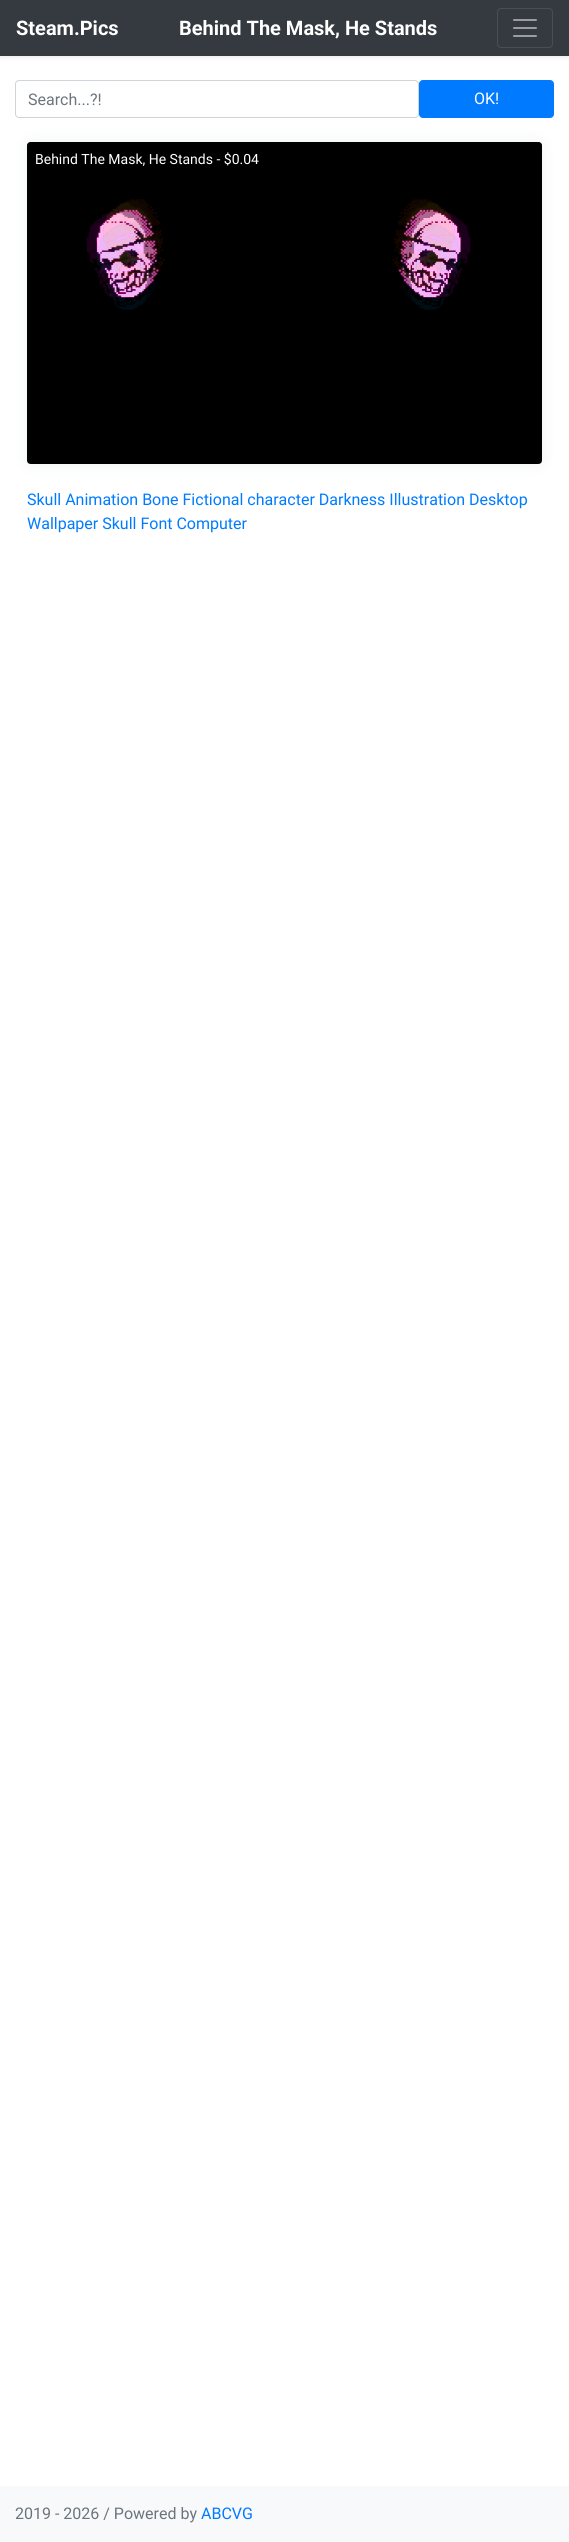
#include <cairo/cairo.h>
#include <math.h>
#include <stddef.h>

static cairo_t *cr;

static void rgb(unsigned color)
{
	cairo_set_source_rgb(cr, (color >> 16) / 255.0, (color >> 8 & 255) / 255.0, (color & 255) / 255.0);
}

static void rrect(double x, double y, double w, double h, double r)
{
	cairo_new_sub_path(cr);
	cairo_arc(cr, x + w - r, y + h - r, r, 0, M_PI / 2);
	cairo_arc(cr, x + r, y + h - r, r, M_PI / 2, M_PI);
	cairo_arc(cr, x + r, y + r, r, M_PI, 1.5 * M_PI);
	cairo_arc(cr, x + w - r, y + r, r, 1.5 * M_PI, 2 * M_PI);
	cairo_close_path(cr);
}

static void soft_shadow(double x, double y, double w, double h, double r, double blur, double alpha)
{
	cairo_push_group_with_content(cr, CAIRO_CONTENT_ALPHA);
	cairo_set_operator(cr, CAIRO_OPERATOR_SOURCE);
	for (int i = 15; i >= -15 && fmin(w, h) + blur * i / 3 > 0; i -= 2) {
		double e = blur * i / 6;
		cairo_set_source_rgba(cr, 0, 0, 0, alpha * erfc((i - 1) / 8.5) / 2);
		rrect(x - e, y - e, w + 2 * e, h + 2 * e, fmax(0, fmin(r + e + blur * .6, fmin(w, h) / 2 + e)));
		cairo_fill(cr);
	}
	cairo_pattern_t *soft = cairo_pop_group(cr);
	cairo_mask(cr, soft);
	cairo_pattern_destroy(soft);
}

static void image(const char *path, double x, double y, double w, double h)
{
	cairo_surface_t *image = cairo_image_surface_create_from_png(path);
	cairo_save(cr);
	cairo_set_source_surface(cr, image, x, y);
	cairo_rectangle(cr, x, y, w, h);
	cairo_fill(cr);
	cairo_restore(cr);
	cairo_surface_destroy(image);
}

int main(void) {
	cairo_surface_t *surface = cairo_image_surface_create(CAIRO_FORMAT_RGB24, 569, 2542);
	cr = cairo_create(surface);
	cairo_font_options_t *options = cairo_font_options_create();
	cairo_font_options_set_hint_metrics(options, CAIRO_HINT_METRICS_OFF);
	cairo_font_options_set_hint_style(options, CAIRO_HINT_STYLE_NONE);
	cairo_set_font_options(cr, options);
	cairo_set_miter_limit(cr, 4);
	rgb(0xffffff);
	cairo_paint(cr);
	rgb(0x000000);
	soft_shadow(0, 2, 569, 56, 0, 2, 0.07);
	rgb(0x343a40);
	cairo_rectangle(cr, 0, 0, 569, 56);
	cairo_fill(cr);
	rrect(497.5, 8.5, 55, 39, 3.5);
	rgb(0x484e53);
	cairo_set_line_width(cr, 1);
	cairo_stroke(cr);
	image("img/1.png", 513, 19, 24, 18);
	rrect(15.5, 80.5, 403, 37, 3.5);
	rgb(0xced4da);
	cairo_stroke(cr);
	rgb(0x007bff);
	rrect(419.5, 80.5, 134, 37, 3.5);
	cairo_fill_preserve(cr);
	cairo_stroke(cr);
	rgb(0x9aa1ab);
	soft_shadow(27, 142, 515, 322, 4, 7.5, 0.15);
	image("img/2.png", 27, 142, 515, 322);
	cairo_set_source_rgba(cr, 0, 0, 0, 0.7);
	cairo_new_path(cr);
	cairo_move_to(cr, 31, 142);
	cairo_line_to(cr, 538, 142);
	cairo_curve_to(cr, 540, 142, 542, 144, 542, 146);
	cairo_line_to(cr, 542, 177);
	cairo_line_to(cr, 27, 177);
	cairo_line_to(cr, 27, 146);
	cairo_curve_to(cr, 27, 144, 29, 142, 31, 142);
	cairo_close_path(cr);
	cairo_fill(cr);
	rgb(0xf8f9fa);
	cairo_rectangle(cr, 0, 2486, 569, 56);
	cairo_fill(cr);
	cairo_select_font_face(cr, "Roboto", CAIRO_FONT_SLANT_NORMAL, CAIRO_FONT_WEIGHT_BOLD);
	cairo_set_font_size(cr, 20);
	rgb(0xffffff);
	cairo_move_to(cr, 16, 35);
	cairo_show_text(cr, "Steam.Pics");
	cairo_move_to(cr, 179, 35);
	cairo_show_text(cr, "Behind The Mask, He Stands");
	cairo_select_font_face(cr, "Roboto", CAIRO_FONT_SLANT_NORMAL, CAIRO_FONT_WEIGHT_NORMAL);
	cairo_set_font_size(cr, 16);
	rgb(0x6c757d);
	cairo_move_to(cr, 28, 105);
	cairo_show_text(cr, "Search...?!");
	rgb(0xffffff);
	cairo_move_to(cr, 474, 104);
	cairo_show_text(cr, "OK!");
	cairo_set_font_size(cr, 14);
	cairo_move_to(cr, 35, 164);
	cairo_show_text(cr, "Behind The Mask, He Stands - $0.04");
	cairo_set_font_size(cr, 16);
	rgb(0x007bff);
	cairo_move_to(cr, 27, 505);
	cairo_show_text(cr, "Skull Animation Bone Fictional character Darkness Illustration Desktop");
	cairo_move_to(cr, 27, 529);
	cairo_show_text(cr, "Wallpaper Skull Font Computer");
	rgb(0x6c757d);
	cairo_move_to(cr, 15, 2519);
	cairo_show_text(cr, "2019 - 2026 / Powered by");
	rgb(0x007bff);
	cairo_move_to(cr, 201, 2519);
	cairo_show_text(cr, "ABCVG");
	cairo_surface_write_to_png(surface, "page.png");
	cairo_font_options_destroy(options);
	cairo_destroy(cr);
	cairo_surface_destroy(surface);
	return 0;
}
